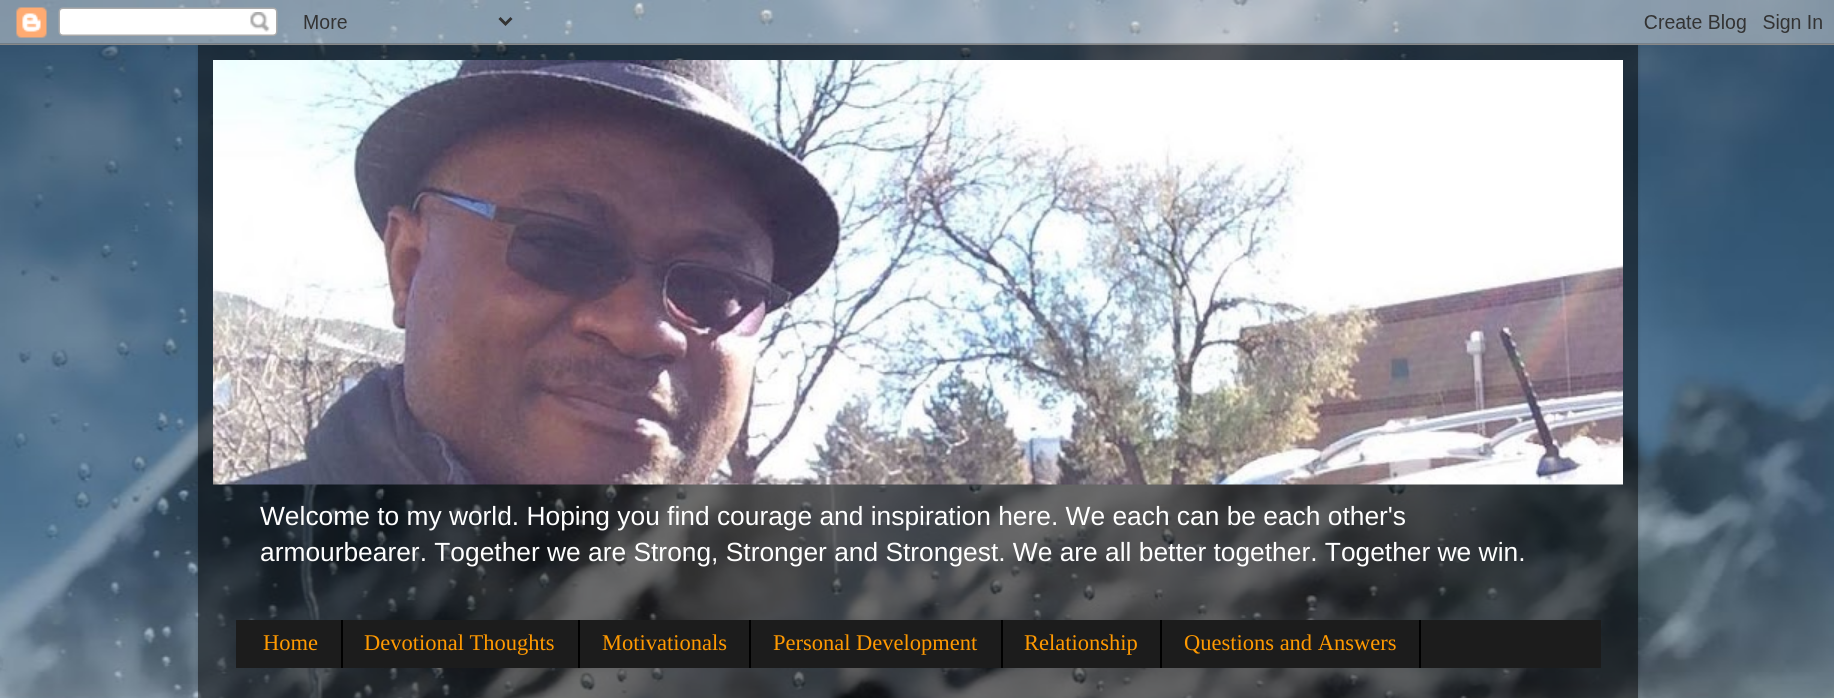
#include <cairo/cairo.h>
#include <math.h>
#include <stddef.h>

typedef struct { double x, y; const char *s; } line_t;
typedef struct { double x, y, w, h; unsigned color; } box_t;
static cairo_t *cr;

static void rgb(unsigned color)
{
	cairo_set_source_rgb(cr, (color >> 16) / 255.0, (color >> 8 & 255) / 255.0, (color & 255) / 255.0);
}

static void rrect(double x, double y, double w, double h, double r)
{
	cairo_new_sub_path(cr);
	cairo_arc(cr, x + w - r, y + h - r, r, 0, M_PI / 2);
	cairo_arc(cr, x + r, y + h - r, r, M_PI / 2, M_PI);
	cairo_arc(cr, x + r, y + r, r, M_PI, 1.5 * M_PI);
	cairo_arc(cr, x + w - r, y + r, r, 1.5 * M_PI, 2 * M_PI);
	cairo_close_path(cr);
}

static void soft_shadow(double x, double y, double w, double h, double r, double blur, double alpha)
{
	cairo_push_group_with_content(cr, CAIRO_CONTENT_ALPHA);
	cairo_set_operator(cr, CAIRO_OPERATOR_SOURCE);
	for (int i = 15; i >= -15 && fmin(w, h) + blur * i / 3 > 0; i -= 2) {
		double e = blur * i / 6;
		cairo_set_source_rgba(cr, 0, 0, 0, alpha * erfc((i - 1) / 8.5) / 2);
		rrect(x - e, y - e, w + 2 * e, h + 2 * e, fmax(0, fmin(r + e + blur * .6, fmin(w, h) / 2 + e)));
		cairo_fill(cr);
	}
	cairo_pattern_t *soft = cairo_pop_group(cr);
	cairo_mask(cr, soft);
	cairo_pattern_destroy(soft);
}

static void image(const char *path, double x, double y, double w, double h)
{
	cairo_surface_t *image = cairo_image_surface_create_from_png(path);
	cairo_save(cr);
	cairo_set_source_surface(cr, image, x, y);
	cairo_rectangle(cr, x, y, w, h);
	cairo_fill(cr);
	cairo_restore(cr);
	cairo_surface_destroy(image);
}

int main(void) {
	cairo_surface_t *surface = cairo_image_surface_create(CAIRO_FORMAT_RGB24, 1834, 698);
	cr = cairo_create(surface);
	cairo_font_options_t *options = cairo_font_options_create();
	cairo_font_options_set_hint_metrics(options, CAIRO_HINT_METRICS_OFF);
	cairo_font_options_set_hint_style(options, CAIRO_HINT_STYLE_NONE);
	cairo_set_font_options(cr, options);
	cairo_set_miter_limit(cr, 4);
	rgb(0xffffff);
	cairo_paint(cr);
	image("img/1.png", 0, 0, 1834, 698);
	cairo_save(cr);
	cairo_set_fill_rule(cr, CAIRO_FILL_RULE_EVEN_ODD);
	cairo_new_path(cr);
	cairo_move_to(cr, 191, 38);
	cairo_line_to(cr, 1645, 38);
	cairo_line_to(cr, 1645, 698);
	cairo_line_to(cr, 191, 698);
	cairo_close_path(cr);
	cairo_move_to(cr, 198, 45);
	cairo_line_to(cr, 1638, 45);
	cairo_line_to(cr, 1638, 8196);
	cairo_line_to(cr, 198, 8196);
	cairo_close_path(cr);
	cairo_clip(cr);
	rgb(0x000000);
	soft_shadow(198, 45, 1440, 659, 0, 2, 0.15);
	cairo_restore(cr);
	image("img/2.png", 0, 0, 1834, 45);
	cairo_set_source_rgba(cr, 0, 0, 0, 0.5);
	cairo_rectangle(cr, 198, 45, 1440, 653);
	cairo_fill(cr);
	image("img/3.png", 213, 60, 1410, 425);
	{
		static const box_t items[] = {
			{236, 620, 1365, 48, 0x1c1c1c},
			{341, 620, 2, 48, 0x000000},
			{578, 620, 2, 48, 0x000000},
			{749, 620, 2, 48, 0x000000},
			{1001, 620, 2, 48, 0x000000},
			{1160, 620, 2, 48, 0x000000},
			{1419, 620, 2, 48, 0x000000},
		};
		for (size_t i = 0; i < sizeof items / sizeof *items; i++) {
			rgb(items[i].color);
			cairo_rectangle(cr, items[i].x, items[i].y, items[i].w, items[i].h);
			cairo_fill(cr);
		}
	}
	cairo_select_font_face(cr, "Liberation Sans", CAIRO_FONT_SLANT_NORMAL, CAIRO_FONT_WEIGHT_NORMAL);
	cairo_set_font_size(cr, 26.35);
	rgb(0xffffff);
	cairo_move_to(cr, 260, 525);
	cairo_show_text(cr, "Welcome to my world. Hoping you find courage and inspiration here. We each can be each other's");
	cairo_move_to(cr, 260, 561);
	cairo_show_text(cr, "armourbearer. Together we are Strong, Stronger and Strongest. We are all better together. Together we win.");
	cairo_select_font_face(cr, "Liberation Serif", CAIRO_FONT_SLANT_NORMAL, CAIRO_FONT_WEIGHT_NORMAL);
	cairo_set_font_size(cr, 22.5);
	rgb(0xff9900);
	{
		static const line_t items[] = {
			{263, 650, "Home"},
			{364, 650, "Devotional Thoughts"},
			{602, 650, "Motivationals"},
			{773, 650, "Personal Development"},
			{1024, 650, "Relationship"},
			{1184, 650, "Questions and Answers"},
		};
		for (size_t i = 0; i < sizeof items / sizeof *items; i++) {
			cairo_move_to(cr, items[i].x, items[i].y);
			cairo_show_text(cr, items[i].s);
		}
	}
	cairo_surface_write_to_png(surface, "page.png");
	cairo_font_options_destroy(options);
	cairo_destroy(cr);
	cairo_surface_destroy(surface);
	return 0;
}
